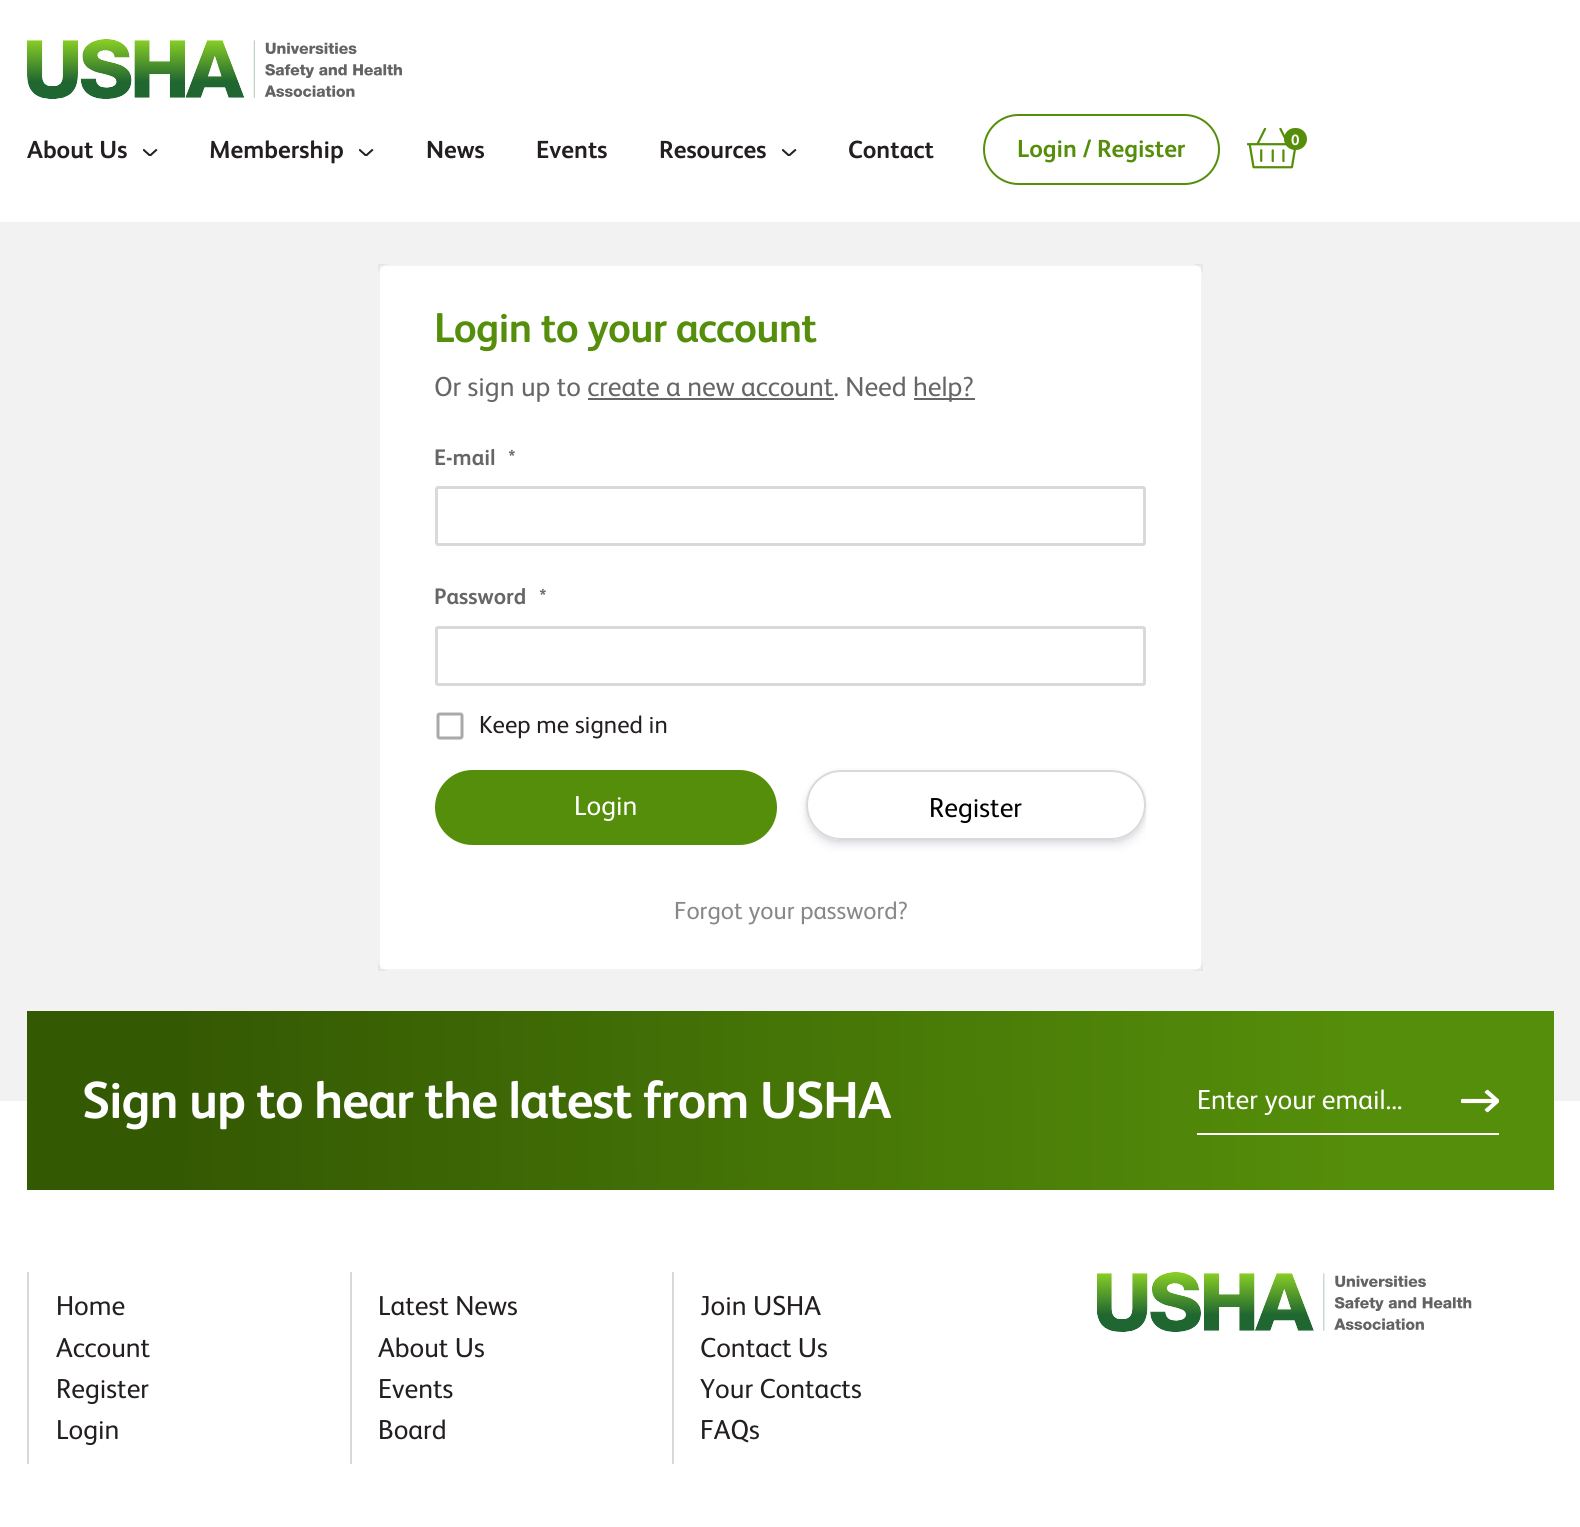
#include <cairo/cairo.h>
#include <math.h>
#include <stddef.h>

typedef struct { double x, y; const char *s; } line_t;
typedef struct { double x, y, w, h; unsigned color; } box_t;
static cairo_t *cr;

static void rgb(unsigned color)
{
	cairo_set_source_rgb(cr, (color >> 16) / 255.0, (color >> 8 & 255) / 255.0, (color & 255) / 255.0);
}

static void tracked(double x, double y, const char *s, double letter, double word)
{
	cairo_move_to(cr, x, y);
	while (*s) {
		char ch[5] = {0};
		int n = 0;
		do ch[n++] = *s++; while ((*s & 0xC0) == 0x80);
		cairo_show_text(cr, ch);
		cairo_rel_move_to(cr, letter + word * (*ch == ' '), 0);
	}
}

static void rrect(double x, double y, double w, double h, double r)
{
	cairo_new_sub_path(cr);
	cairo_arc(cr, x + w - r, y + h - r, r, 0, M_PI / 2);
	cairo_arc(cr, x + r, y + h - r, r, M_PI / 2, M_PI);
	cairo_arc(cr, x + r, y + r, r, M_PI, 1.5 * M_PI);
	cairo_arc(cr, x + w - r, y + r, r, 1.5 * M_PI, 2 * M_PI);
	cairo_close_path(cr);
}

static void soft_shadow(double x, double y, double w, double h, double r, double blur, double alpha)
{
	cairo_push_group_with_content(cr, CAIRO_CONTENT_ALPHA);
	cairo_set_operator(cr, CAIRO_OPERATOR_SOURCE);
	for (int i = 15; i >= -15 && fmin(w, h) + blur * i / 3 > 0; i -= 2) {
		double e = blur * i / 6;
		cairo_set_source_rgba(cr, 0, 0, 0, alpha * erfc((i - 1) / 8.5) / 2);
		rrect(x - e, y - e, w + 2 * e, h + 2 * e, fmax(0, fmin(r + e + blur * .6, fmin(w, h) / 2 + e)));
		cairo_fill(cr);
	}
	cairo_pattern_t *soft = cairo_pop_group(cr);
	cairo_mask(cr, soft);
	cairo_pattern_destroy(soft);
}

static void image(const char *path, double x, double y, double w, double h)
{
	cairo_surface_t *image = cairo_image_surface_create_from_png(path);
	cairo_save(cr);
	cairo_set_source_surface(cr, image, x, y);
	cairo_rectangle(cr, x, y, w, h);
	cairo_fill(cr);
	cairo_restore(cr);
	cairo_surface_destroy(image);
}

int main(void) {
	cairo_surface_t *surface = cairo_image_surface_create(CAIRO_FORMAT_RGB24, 1580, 1527);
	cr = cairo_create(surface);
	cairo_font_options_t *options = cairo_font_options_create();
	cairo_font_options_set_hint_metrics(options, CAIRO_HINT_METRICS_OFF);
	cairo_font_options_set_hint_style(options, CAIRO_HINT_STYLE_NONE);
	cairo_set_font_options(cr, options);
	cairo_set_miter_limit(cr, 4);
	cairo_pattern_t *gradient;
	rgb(0xffffff);
	cairo_paint(cr);
	image("img/1.png", 27, 39, 375, 60);
	image("img/2.png", 143, 149, 15, 7);
	image("img/2.png", 359, 149, 15, 7);
	image("img/2.png", 782, 149, 15, 7);
	rrect(984, 115, 235, 69, 34.5);
	rgb(0x558e0a);
	cairo_stroke(cr);
	image("img/3.png", 1247, 128, 50, 41);
	rrect(1284, 128, 23, 22, 11);
	cairo_fill(cr);
	rgb(0xf2f2f2);
	cairo_rectangle(cr, 0, 222, 1580, 879);
	cairo_fill(cr);
	rgb(0xffffff);
	rrect(378, 264, 825, 707, 12);
	cairo_fill(cr);
	cairo_rectangle(cr, 379, 265, 823, 705);
	cairo_set_source_rgba(cr, 0, 0, 0, 0.05);
	cairo_stroke(cr);
	rgb(0x666666);
	cairo_rectangle(cr, 914, 398, 61, 2);
	cairo_fill(cr);
	cairo_rectangle(cr, 588, 398, 246, 2);
	cairo_fill(cr);
	rrect(436.5, 487.5, 708, 57, 1.5);
	rgb(0xd9d9d9);
	cairo_set_line_width(cr, 3);
	cairo_stroke(cr);
	rrect(436.5, 627.5, 708, 57, 1.5);
	cairo_stroke(cr);
	image("img/4.png", 436, 712, 28, 28);
	rgb(0x558e0a);
	rrect(435, 770, 342, 75, 37.5);
	cairo_fill(cr);
	cairo_save(cr);
	cairo_set_fill_rule(cr, CAIRO_FILL_RULE_EVEN_ODD);
	cairo_new_path(cr);
	cairo_move_to(cr, 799, 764);
	cairo_line_to(cr, 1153, 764);
	cairo_line_to(cr, 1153, 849);
	cairo_line_to(cr, 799, 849);
	cairo_close_path(cr);
	cairo_move_to(cr, 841, 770);
	cairo_line_to(cr, 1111, 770);
	cairo_curve_to(cr, 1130.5, 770, 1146, 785.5, 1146, 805);
	cairo_curve_to(cr, 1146, 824.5, 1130.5, 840, 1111, 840);
	cairo_line_to(cr, 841, 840);
	cairo_curve_to(cr, 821.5, 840, 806, 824.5, 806, 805);
	cairo_curve_to(cr, 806, 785.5, 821.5, 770, 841, 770);
	cairo_close_path(cr);
	cairo_clip(cr);
	rgb(0x000000);
	soft_shadow(806, 771, 340, 71, 35.5, 2, 0.08);
	cairo_restore(cr);
	cairo_save(cr);
	cairo_rectangle(cr, 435, 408, 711, 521);
	cairo_clip(cr);
	cairo_set_fill_rule(cr, CAIRO_FILL_RULE_EVEN_ODD);
	cairo_new_path(cr);
	cairo_move_to(cr, 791, 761);
	cairo_line_to(cr, 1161, 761);
	cairo_line_to(cr, 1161, 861);
	cairo_line_to(cr, 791, 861);
	cairo_close_path(cr);
	cairo_move_to(cr, 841, 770);
	cairo_line_to(cr, 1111, 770);
	cairo_curve_to(cr, 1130.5, 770, 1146, 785.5, 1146, 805);
	cairo_curve_to(cr, 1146, 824.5, 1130.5, 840, 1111, 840);
	cairo_line_to(cr, 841, 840);
	cairo_curve_to(cr, 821.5, 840, 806, 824.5, 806, 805);
	cairo_curve_to(cr, 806, 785.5, 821.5, 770, 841, 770);
	cairo_close_path(cr);
	cairo_clip(cr);
	rgb(0x32325d);
	soft_shadow(806, 776, 340, 70, 35, 4.5, 0.11);
	cairo_restore(cr);
	rrect(807, 771, 338, 68, 34);
	rgb(0xd9d9d9);
	cairo_set_line_width(cr, 2);
	cairo_stroke(cr);
	gradient = cairo_pattern_create_linear(1555, 1095, 26, 1106);
	cairo_pattern_add_color_stop_rgba(gradient, 0.13, 0.333, 0.557, 0.039, 1);
	cairo_pattern_add_color_stop_rgba(gradient, 0.9, 0.204, 0.349, 0.012, 1);
	cairo_set_source(cr, gradient);
	cairo_pattern_destroy(gradient);
	cairo_rectangle(cr, 27, 1011, 1527, 179);
	cairo_fill(cr);
	rgb(0xffffff);
	cairo_rectangle(cr, 1197, 1133, 302, 2);
	cairo_fill(cr);
	image("img/5.png", 1461, 1089, 38, 24);
	{
		static const box_t items[] = {
			{27, 1272, 2, 192, 0xd9d9d9},
			{350, 1272, 2, 192, 0xd9d9d9},
			{672, 1272, 2, 192, 0xd9d9d9},
		};
		for (size_t i = 0; i < sizeof items / sizeof *items; i++) {
			rgb(items[i].color);
			cairo_rectangle(cr, items[i].x, items[i].y, items[i].w, items[i].h);
			cairo_fill(cr);
		}
	}
	image("img/6.png", 1097, 1272, 375, 60);
	cairo_select_font_face(cr, "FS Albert", CAIRO_FONT_SLANT_NORMAL, CAIRO_FONT_WEIGHT_BOLD);
	cairo_set_font_size(cr, 24.75);
	rgb(0x231f20);
	{
		static const line_t items[] = {
			{27, 158, "About Us"},
			{209, 158, "Membership"},
			{426, 158, "News"},
			{536, 158, "Events"},
			{659, 158, "Resources"},
			{848, 158, "Contact"},
		};
		for (size_t i = 0; i < sizeof items / sizeof *items; i++) {
			cairo_move_to(cr, items[i].x, items[i].y);
			cairo_show_text(cr, items[i].s);
		}
	}
	rgb(0x558e0a);
	cairo_move_to(cr, 1017, 157);
	cairo_show_text(cr, "Login / Register");
	cairo_set_font_size(cr, 15);
	rgb(0xffffff);
	cairo_move_to(cr, 1291, 145);
	cairo_show_text(cr, "0");
	cairo_set_font_size(cr, 41.75);
	rgb(0x558e0a);
	tracked(434, 342, "Login to your account", -0.75, 0);
	cairo_select_font_face(cr, "FS Albert", CAIRO_FONT_SLANT_NORMAL, CAIRO_FONT_WEIGHT_NORMAL);
	cairo_set_font_size(cr, 27.5);
	rgb(0x666666);
	cairo_move_to(cr, 434, 396);
	cairo_show_text(cr, "Or sign up to create a new account. Need");
	cairo_move_to(cr, 913, 396);
	cairo_show_text(cr, "help?");
	cairo_select_font_face(cr, "FS Albert", CAIRO_FONT_SLANT_NORMAL, CAIRO_FONT_WEIGHT_BOLD);
	cairo_set_font_size(cr, 22.5);
	cairo_move_to(cr, 434, 465);
	cairo_show_text(cr, "E-mail");
	cairo_set_font_size(cr, 21);
	cairo_move_to(cr, 508, 465);
	cairo_show_text(cr, "*");
	cairo_set_font_size(cr, 22.5);
	cairo_move_to(cr, 434, 604);
	cairo_show_text(cr, "Password");
	cairo_set_font_size(cr, 21);
	cairo_move_to(cr, 539, 604);
	cairo_show_text(cr, "*");
	cairo_select_font_face(cr, "FS Albert", CAIRO_FONT_SLANT_NORMAL, CAIRO_FONT_WEIGHT_NORMAL);
	cairo_set_font_size(cr, 24.75);
	rgb(0x231f20);
	cairo_move_to(cr, 479, 733);
	cairo_show_text(cr, "Keep me signed in");
	cairo_set_font_size(cr, 27.5);
	rgb(0xffffff);
	cairo_move_to(cr, 574, 815);
	cairo_show_text(cr, "Login");
	rgb(0x000000);
	cairo_move_to(cr, 929, 817);
	cairo_show_text(cr, "Register");
	cairo_set_font_size(cr, 24.75);
	rgb(0x888888);
	cairo_move_to(cr, 674, 919);
	cairo_show_text(cr, "Forgot your password?");
	cairo_select_font_face(cr, "FS Albert", CAIRO_FONT_SLANT_NORMAL, CAIRO_FONT_WEIGHT_BOLD);
	cairo_set_font_size(cr, 52.1);
	rgb(0xffffff);
	tracked(82, 1118, "Sign up to hear the latest from USHA", -1.1, 0);
	cairo_select_font_face(cr, "FS Albert", CAIRO_FONT_SLANT_NORMAL, CAIRO_FONT_WEIGHT_NORMAL);
	cairo_set_font_size(cr, 27.5);
	cairo_move_to(cr, 1197, 1109);
	cairo_show_text(cr, "Enter your email...");
	rgb(0x231f20);
	{
		static const line_t items[] = {
			{56, 1315, "Home"},
			{56, 1357, "Account"},
			{56, 1398, "Register"},
			{56, 1439, "Login"},
			{378, 1315, "Latest News"},
			{378, 1357, "About Us"},
			{378, 1398, "Events"},
			{378, 1439, "Board"},
			{700, 1315, "Join USHA"},
			{700, 1357, "Contact Us"},
			{700, 1398, "Your Contacts"},
			{700, 1439, "FAQs"},
		};
		for (size_t i = 0; i < sizeof items / sizeof *items; i++) {
			cairo_move_to(cr, items[i].x, items[i].y);
			cairo_show_text(cr, items[i].s);
		}
	}
	cairo_surface_write_to_png(surface, "page.png");
	cairo_font_options_destroy(options);
	cairo_destroy(cr);
	cairo_surface_destroy(surface);
	return 0;
}
